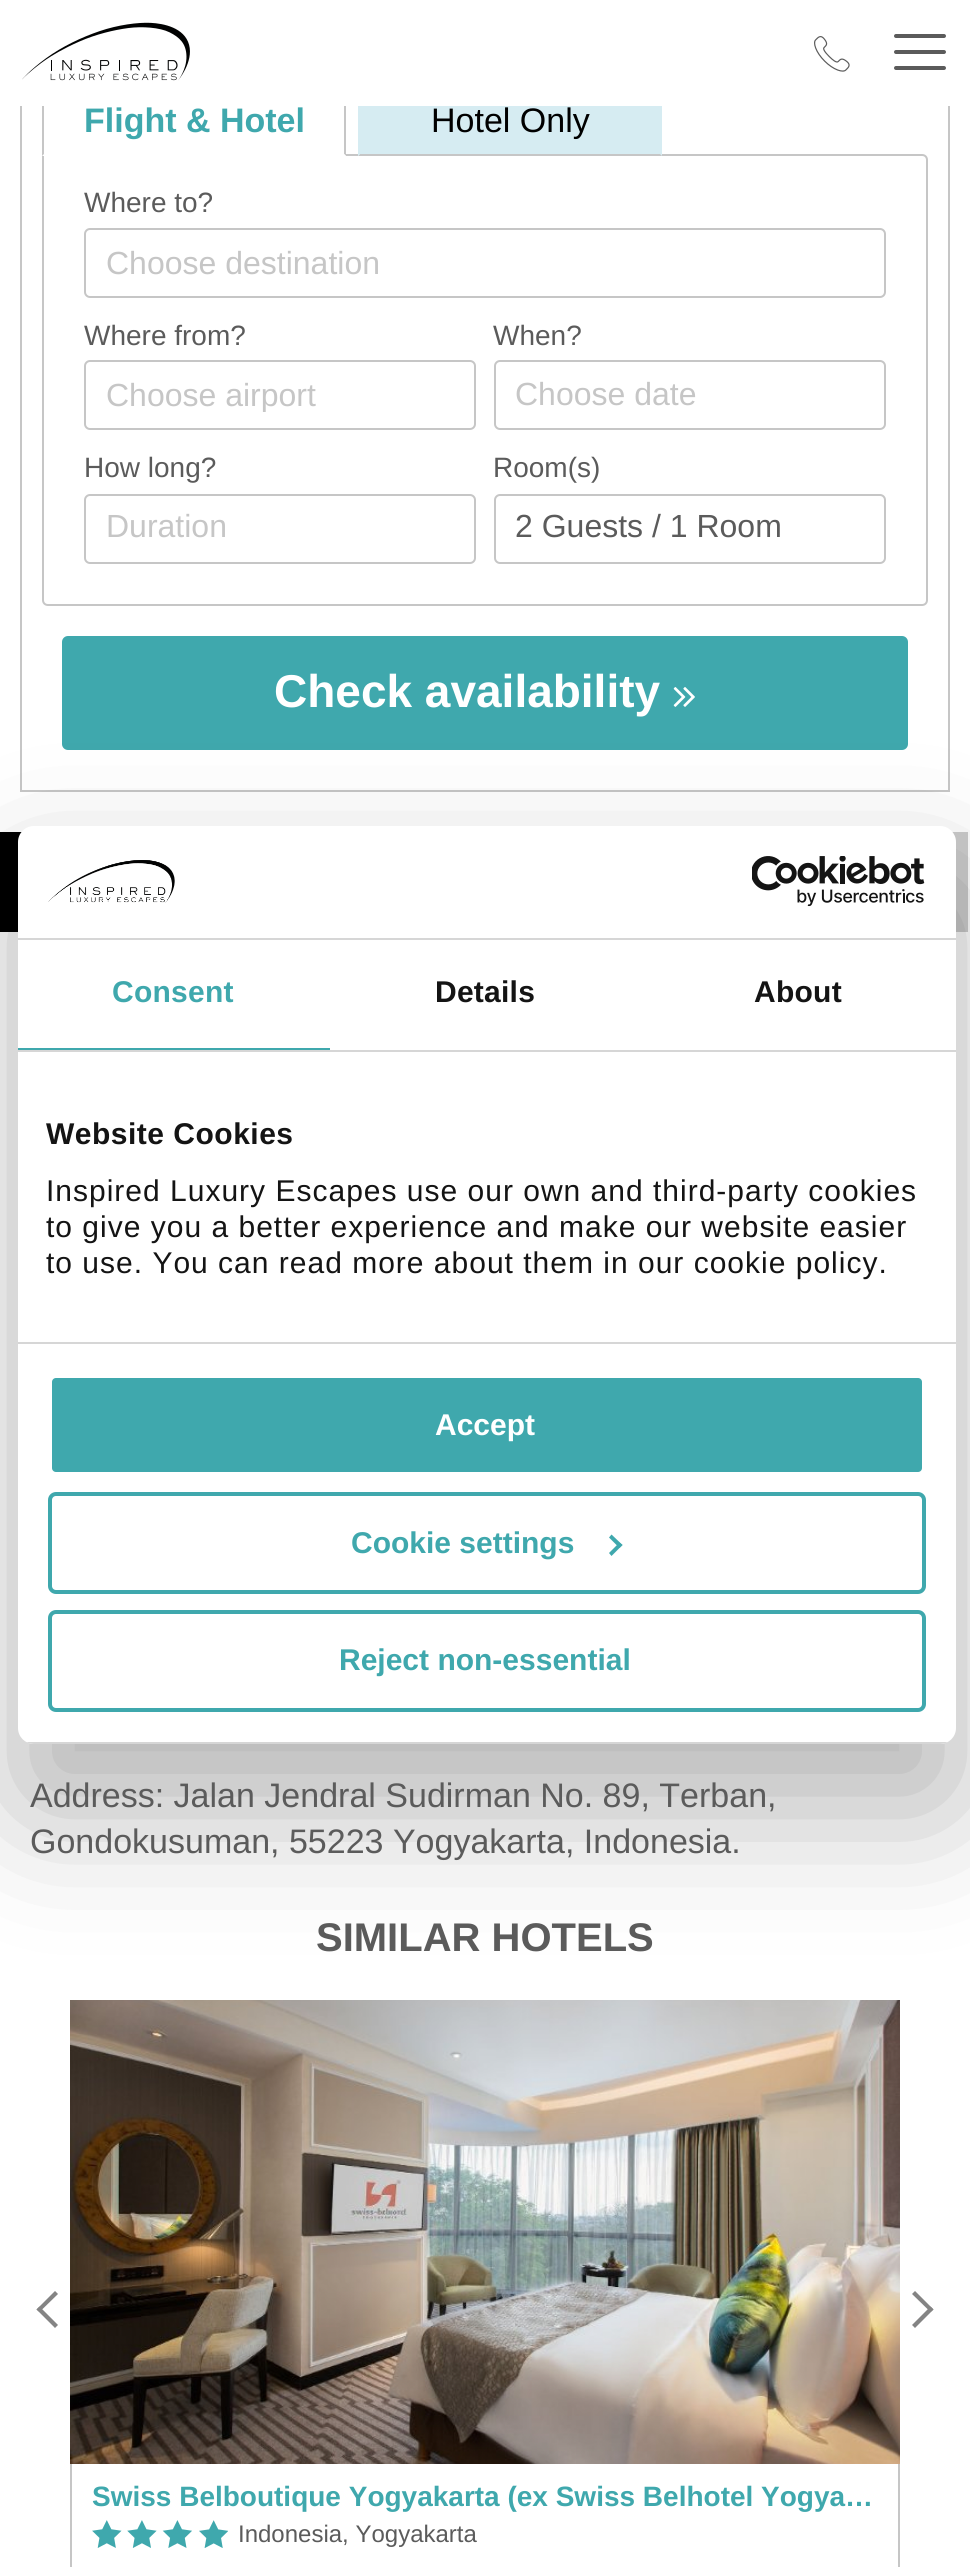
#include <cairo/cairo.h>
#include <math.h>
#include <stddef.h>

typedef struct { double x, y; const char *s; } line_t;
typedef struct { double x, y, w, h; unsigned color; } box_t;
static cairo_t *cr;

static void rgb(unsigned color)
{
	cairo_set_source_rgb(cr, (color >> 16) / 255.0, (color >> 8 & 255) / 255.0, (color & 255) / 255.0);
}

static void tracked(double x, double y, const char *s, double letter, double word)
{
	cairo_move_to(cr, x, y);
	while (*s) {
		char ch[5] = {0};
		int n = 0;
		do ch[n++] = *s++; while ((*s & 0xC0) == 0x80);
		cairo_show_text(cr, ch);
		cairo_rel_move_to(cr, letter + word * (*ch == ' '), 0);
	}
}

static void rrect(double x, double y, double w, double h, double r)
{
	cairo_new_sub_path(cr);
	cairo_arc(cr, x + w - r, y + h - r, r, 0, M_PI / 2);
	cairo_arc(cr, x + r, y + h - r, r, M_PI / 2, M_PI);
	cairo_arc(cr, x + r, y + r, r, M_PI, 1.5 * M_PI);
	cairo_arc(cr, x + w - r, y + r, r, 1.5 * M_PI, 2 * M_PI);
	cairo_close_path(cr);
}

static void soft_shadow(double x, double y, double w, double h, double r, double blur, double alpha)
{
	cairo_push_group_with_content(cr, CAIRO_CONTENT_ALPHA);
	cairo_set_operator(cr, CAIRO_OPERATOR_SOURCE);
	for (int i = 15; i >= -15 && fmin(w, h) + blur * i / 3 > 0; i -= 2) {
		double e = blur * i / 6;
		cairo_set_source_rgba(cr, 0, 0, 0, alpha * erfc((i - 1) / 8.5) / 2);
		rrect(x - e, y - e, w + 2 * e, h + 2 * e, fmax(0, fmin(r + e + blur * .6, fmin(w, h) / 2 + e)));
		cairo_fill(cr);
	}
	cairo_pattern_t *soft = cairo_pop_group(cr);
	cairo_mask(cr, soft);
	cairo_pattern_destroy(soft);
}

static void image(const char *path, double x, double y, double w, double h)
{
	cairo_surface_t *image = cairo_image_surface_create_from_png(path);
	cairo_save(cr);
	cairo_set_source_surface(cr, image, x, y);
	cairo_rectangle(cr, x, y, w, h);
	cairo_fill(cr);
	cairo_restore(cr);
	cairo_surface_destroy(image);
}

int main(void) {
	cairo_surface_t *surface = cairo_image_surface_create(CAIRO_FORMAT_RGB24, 970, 2567);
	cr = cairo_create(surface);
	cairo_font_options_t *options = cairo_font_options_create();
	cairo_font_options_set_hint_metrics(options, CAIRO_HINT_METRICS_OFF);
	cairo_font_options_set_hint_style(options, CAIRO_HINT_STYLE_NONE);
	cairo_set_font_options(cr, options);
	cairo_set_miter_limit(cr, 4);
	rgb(0xffffff);
	cairo_paint(cr);
	cairo_rectangle(cr, 21, -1, 928, 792);
	rgb(0xc6c6c6);
	cairo_stroke(cr);
	cairo_new_path(cr);
	cairo_move_to(cr, 43, 155);
	cairo_line_to(cr, 922, 155);
	cairo_curve_to(cr, 925, 155, 927, 157, 927, 160);
	cairo_line_to(cr, 927, 600);
	cairo_curve_to(cr, 927, 603, 925, 605, 922, 605);
	cairo_line_to(cr, 48, 605);
	cairo_curve_to(cr, 45, 605, 43, 603, 43, 600);
	cairo_close_path(cr);
	cairo_stroke(cr);
	rgb(0xffffff);
	cairo_rectangle(cr, 42, 154, 304, 2);
	cairo_fill(cr);
	rgb(0xc6c6c6);
	cairo_new_path(cr);
	cairo_move_to(cr, 346, 156);
	cairo_line_to(cr, 346, 97);
	cairo_curve_to(cr, 346, 94, 345, 91, 343, 89);
	cairo_line_to(cr, 341, 91);
	cairo_curve_to(cr, 343, 92, 344, 94, 344, 97);
	cairo_line_to(cr, 344, 154);
	cairo_close_path(cr);
	cairo_fill(cr);
	rgb(0xffffff);
	cairo_new_path(cr);
	cairo_move_to(cr, 346, 156);
	cairo_line_to(cr, 344, 154);
	cairo_line_to(cr, 44, 154);
	cairo_line_to(cr, 42, 156);
	cairo_close_path(cr);
	cairo_fill(cr);
	rgb(0xc6c6c6);
	cairo_new_path(cr);
	cairo_move_to(cr, 42, 156);
	cairo_line_to(cr, 44, 154);
	cairo_line_to(cr, 44, 97);
	cairo_curve_to(cr, 44, 94, 45, 92, 47, 91);
	cairo_line_to(cr, 45, 89);
	cairo_curve_to(cr, 43, 91, 42, 94, 42, 97);
	cairo_close_path(cr);
	cairo_fill(cr);
	rgb(0xd6ecf2);
	cairo_rectangle(cr, 358, 106, 304, 50);
	cairo_fill(cr);
	cairo_new_path(cr);
	cairo_move_to(cr, 662, 156);
	cairo_line_to(cr, 662, 97);
	cairo_curve_to(cr, 662, 94, 661, 91, 659, 89);
	cairo_line_to(cr, 657, 91);
	cairo_curve_to(cr, 659, 92, 660, 94, 660, 97);
	cairo_line_to(cr, 660, 154);
	cairo_close_path(cr);
	cairo_fill(cr);
	rgb(0xc6c6c6);
	cairo_new_path(cr);
	cairo_move_to(cr, 662, 156);
	cairo_line_to(cr, 660, 154);
	cairo_line_to(cr, 360, 154);
	cairo_line_to(cr, 358, 156);
	cairo_close_path(cr);
	cairo_fill(cr);
	rgb(0xd6ecf2);
	cairo_new_path(cr);
	cairo_move_to(cr, 358, 156);
	cairo_line_to(cr, 360, 154);
	cairo_line_to(cr, 360, 97);
	cairo_curve_to(cr, 360, 94, 361, 92, 363, 91);
	cairo_line_to(cr, 361, 89);
	cairo_curve_to(cr, 359, 91, 358, 94, 358, 97);
	cairo_close_path(cr);
	cairo_fill(cr);
	rgb(0xffffff);
	cairo_rectangle(cr, 20, 0, 930, 106);
	cairo_fill(cr);
	image("img/1.png", 22, 22, 168, 59);
	image("img/2.png", 814, 36, 36, 36);
	rgb(0x5b5b5b);
	rrect(894, 50, 52, 4, 2);
	cairo_fill(cr);
	rrect(894, 34, 52, 4, 2);
	cairo_fill(cr);
	rrect(894, 66, 52, 4, 2);
	cairo_fill(cr);
	rrect(85, 229, 800, 68, 5);
	rgb(0xc6c6c6);
	cairo_stroke(cr);
	rrect(85, 361, 390, 68, 5);
	cairo_stroke(cr);
	rrect(495, 361, 390, 68, 5);
	cairo_stroke(cr);
	rrect(85, 495, 390, 68, 5);
	cairo_stroke(cr);
	rrect(495, 495, 390, 68, 5);
	cairo_stroke(cr);
	rgb(0x3fa8ad);
	rrect(62, 636, 846, 114, 6);
	cairo_fill(cr);
	image("img/3.png", 673, 687, 22, 20);
	rgb(0x000000);
	cairo_rectangle(cr, 0, 832, 22, 100);
	cairo_fill(cr);
	rgb(0xcccccc);
	cairo_rectangle(cr, 952, 832, 16, 100);
	cairo_fill(cr);
	rgb(0x848484);
	cairo_new_path(cr);
	cairo_move_to(cr, 55, 2328);
	cairo_line_to(cr, 36.5, 2309.5);
	cairo_line_to(cr, 39.5, 2306.5);
	cairo_line_to(cr, 58, 2325);
	cairo_close_path(cr);
	cairo_fill(cr);
	cairo_new_path(cr);
	cairo_move_to(cr, 39.5, 2312);
	cairo_line_to(cr, 36.5, 2309.5);
	cairo_line_to(cr, 55, 2291);
	cairo_line_to(cr, 58, 2294);
	cairo_close_path(cr);
	cairo_fill(cr);
	cairo_new_path(cr);
	cairo_move_to(cr, 915, 2291);
	cairo_line_to(cr, 933.5, 2309.5);
	cairo_line_to(cr, 930.5, 2312);
	cairo_line_to(cr, 912, 2294);
	cairo_close_path(cr);
	cairo_fill(cr);
	cairo_new_path(cr);
	cairo_move_to(cr, 930.5, 2306.5);
	cairo_line_to(cr, 933.5, 2309.5);
	cairo_line_to(cr, 915, 2328);
	cairo_line_to(cr, 912, 2325);
	cairo_close_path(cr);
	cairo_fill(cr);
	image("img/4.png", 70, 2000, 830, 464);
	rgb(0xc6c6c6);
	cairo_rectangle(cr, 898, 2464, 2, 103);
	cairo_fill(cr);
	cairo_rectangle(cr, 70, 2464, 2, 103);
	cairo_fill(cr);
	image("img/5.png", 92, 2520, 136, 28);
	rgb(0x000000);
	soft_shadow(18, 890, 938, 918, 16, 68, 0.3);
	rgb(0xffffff);
	rrect(18, 826, 938, 918, 16);
	cairo_fill(cr);
	rgb(0xd6d6d6);
	cairo_rectangle(cr, 18, 938, 938, 2);
	cairo_fill(cr);
	image("img/6.png", 48, 860, 127, 43);
	image("img/7.png", 752, 856, 173, 51);
	{
		static const box_t items[] = {
			{18, 1050, 938, 2, 0xd6d6d6},
			{18, 1048, 312, 2, 0x3fa8ad},
			{18, 1342, 938, 2, 0xd6d6d6},
		};
		for (size_t i = 0; i < sizeof items / sizeof *items; i++) {
			rgb(items[i].color);
			cairo_rectangle(cr, items[i].x, items[i].y, items[i].w, items[i].h);
			cairo_fill(cr);
		}
	}
	cairo_save(cr);
	rrect(18, 826, 938, 918, 16);
	cairo_clip(cr);
	cairo_rectangle(cr, 18, 1742, 938, 2);
	cairo_fill(cr);
	cairo_restore(cr);
	rgb(0x3fa8ad);
	rrect(50, 1376, 874, 98, 6);
	cairo_fill_preserve(cr);
	rgb(0xffffff);
	cairo_set_line_width(cr, 4);
	cairo_stroke(cr);
	rrect(50, 1494, 874, 98, 6);
	rgb(0x3fa8ad);
	cairo_stroke(cr);
	cairo_new_path(cr);
	cairo_move_to(cr, 611.5, 1534.5);
	cairo_line_to(cr, 622.5, 1545);
	cairo_line_to(cr, 619.5, 1548);
	cairo_line_to(cr, 609, 1537.5);
	cairo_close_path(cr);
	cairo_fill(cr);
	cairo_new_path(cr);
	cairo_move_to(cr, 619.5, 1542.5);
	cairo_line_to(cr, 622.5, 1545);
	cairo_line_to(cr, 611.5, 1556);
	cairo_line_to(cr, 609, 1553);
	cairo_close_path(cr);
	cairo_fill(cr);
	rrect(50, 1612, 874, 98, 6);
	cairo_stroke(cr);
	cairo_select_font_face(cr, "Liberation Sans", CAIRO_FONT_SLANT_NORMAL, CAIRO_FONT_WEIGHT_BOLD);
	cairo_set_font_size(cr, 34);
	cairo_move_to(cr, 84, 132);
	cairo_show_text(cr, "Flight & Hotel");
	cairo_select_font_face(cr, "Liberation Sans", CAIRO_FONT_SLANT_NORMAL, CAIRO_FONT_WEIGHT_NORMAL);
	rgb(0x000000);
	cairo_move_to(cr, 431, 132);
	cairo_show_text(cr, "Hotel Only");
	cairo_set_font_size(cr, 28);
	rgb(0x5b5b5b);
	cairo_move_to(cr, 84, 212);
	cairo_show_text(cr, "Where to?");
	cairo_set_font_size(cr, 32);
	rgb(0xc6c6c6);
	cairo_move_to(cr, 106, 274);
	cairo_show_text(cr, "Choose destination");
	cairo_set_font_size(cr, 28);
	rgb(0x5b5b5b);
	cairo_move_to(cr, 84, 345);
	cairo_show_text(cr, "Where from?");
	cairo_save(cr);
	cairo_rectangle(cr, 106, 378, 338, 34);
	cairo_clip(cr);
	cairo_set_font_size(cr, 32);
	rgb(0xc6c6c6);
	cairo_move_to(cr, 106, 406);
	cairo_show_text(cr, "Choose airport");
	cairo_restore(cr);
	cairo_move_to(cr, 493, 345);
	cairo_show_text(cr, "When?");
	cairo_set_font_size(cr, 32);
	rgb(0xc6c6c6);
	cairo_move_to(cr, 515, 405);
	cairo_show_text(cr, "Choose date");
	cairo_set_font_size(cr, 28);
	rgb(0x5b5b5b);
	cairo_move_to(cr, 84, 477);
	cairo_show_text(cr, "How long?");
	cairo_set_font_size(cr, 32);
	rgb(0xc6c6c6);
	cairo_move_to(cr, 106, 537);
	cairo_show_text(cr, "Duration");
	cairo_set_font_size(cr, 28);
	rgb(0x5b5b5b);
	cairo_move_to(cr, 493, 477);
	cairo_show_text(cr, "Room(s)");
	cairo_set_font_size(cr, 32);
	cairo_move_to(cr, 515, 537);
	cairo_show_text(cr, "2 Guests / 1 Room");
	cairo_select_font_face(cr, "Liberation Sans", CAIRO_FONT_SLANT_NORMAL, CAIRO_FONT_WEIGHT_BOLD);
	cairo_set_font_size(cr, 46);
	rgb(0xffffff);
	cairo_move_to(cr, 274, 707);
	cairo_show_text(cr, "Check availability");
	cairo_select_font_face(cr, "Liberation Sans", CAIRO_FONT_SLANT_NORMAL, CAIRO_FONT_WEIGHT_NORMAL);
	cairo_set_font_size(cr, 34);
	rgb(0x5b5b5b);
	cairo_move_to(cr, 30, 1807);
	cairo_show_text(cr, "Address: Jalan Jendral Sudirman No. 89, Terban,");
	cairo_move_to(cr, 30, 1853);
	cairo_show_text(cr, "Gondokusuman, 55223 Yogyakarta, Indonesia.");
	cairo_select_font_face(cr, "Liberation Sans", CAIRO_FONT_SLANT_NORMAL, CAIRO_FONT_WEIGHT_BOLD);
	cairo_set_font_size(cr, 40);
	cairo_move_to(cr, 316, 1951);
	cairo_show_text(cr, "SIMILAR HOTELS");
	cairo_set_font_size(cr, 28);
	rgb(0x3fa8ad);
	cairo_move_to(cr, 92, 2506);
	cairo_show_text(cr, "Swiss Belboutique Yogyakarta (ex Swiss Belhotel Yogya…");
	cairo_select_font_face(cr, "Liberation Sans", CAIRO_FONT_SLANT_NORMAL, CAIRO_FONT_WEIGHT_NORMAL);
	cairo_set_font_size(cr, 24);
	rgb(0x5b5b5b);
	cairo_move_to(cr, 238, 2542);
	cairo_show_text(cr, "Indonesia, Yogyakarta");
	cairo_select_font_face(cr, "Liberation Sans", CAIRO_FONT_SLANT_NORMAL, CAIRO_FONT_WEIGHT_BOLD);
	cairo_set_font_size(cr, 30);
	rgb(0x3fa8ad);
	tracked(112, 1002, "Consent", 0.25, 0);
	rgb(0x141414);
	tracked(435, 1002, "Details", 0.25, 0);
	tracked(754, 1002, "About", 0.25, 0);
	tracked(46, 1144, "Website Cookies", 0.5, 0);
	cairo_select_font_face(cr, "Liberation Sans", CAIRO_FONT_SLANT_NORMAL, CAIRO_FONT_WEIGHT_NORMAL);
	{
		static const line_t items[] = {
			{46, 1201, "Inspired Luxury Escapes use our own and third-party cookies"},
			{46, 1237, "to give you a better experience and make our website easier"},
			{46, 1273, "to use. You can read more about them in our cookie policy."},
		};
		for (size_t i = 0; i < sizeof items / sizeof *items; i++) {
			tracked(items[i].x, items[i].y, items[i].s, 1, 0);
		}
	}
	cairo_select_font_face(cr, "Liberation Sans", CAIRO_FONT_SLANT_NORMAL, CAIRO_FONT_WEIGHT_BOLD);
	rgb(0xffffff);
	cairo_move_to(cr, 435, 1435);
	cairo_show_text(cr, "Accept");
	rgb(0x3fa8ad);
	cairo_move_to(cr, 351, 1553);
	cairo_show_text(cr, "Cookie settings");
	cairo_move_to(cr, 339, 1670);
	cairo_show_text(cr, "Reject non-essential");
	cairo_surface_write_to_png(surface, "page.png");
	cairo_font_options_destroy(options);
	cairo_destroy(cr);
	cairo_surface_destroy(surface);
	return 0;
}
